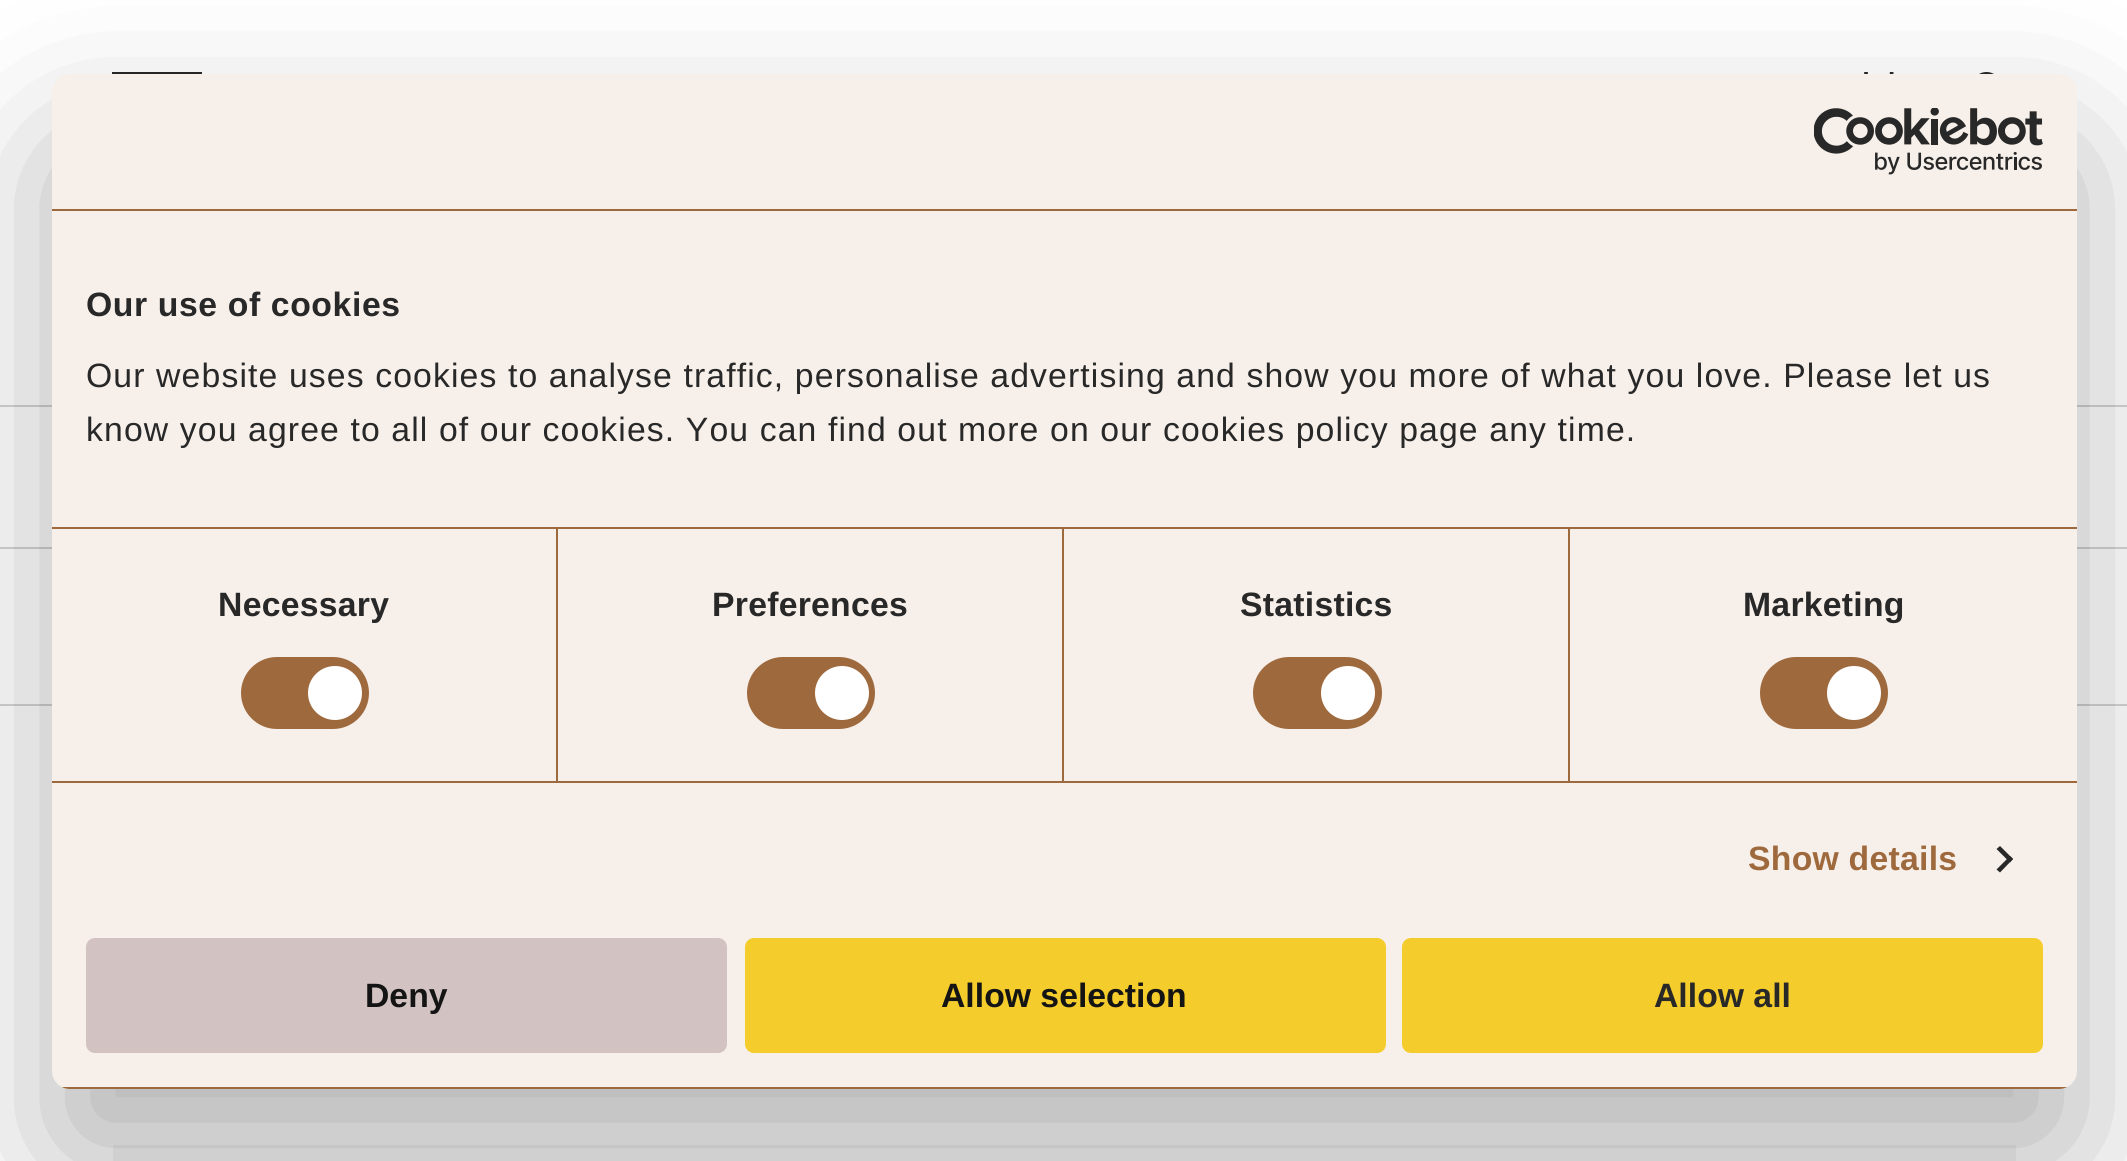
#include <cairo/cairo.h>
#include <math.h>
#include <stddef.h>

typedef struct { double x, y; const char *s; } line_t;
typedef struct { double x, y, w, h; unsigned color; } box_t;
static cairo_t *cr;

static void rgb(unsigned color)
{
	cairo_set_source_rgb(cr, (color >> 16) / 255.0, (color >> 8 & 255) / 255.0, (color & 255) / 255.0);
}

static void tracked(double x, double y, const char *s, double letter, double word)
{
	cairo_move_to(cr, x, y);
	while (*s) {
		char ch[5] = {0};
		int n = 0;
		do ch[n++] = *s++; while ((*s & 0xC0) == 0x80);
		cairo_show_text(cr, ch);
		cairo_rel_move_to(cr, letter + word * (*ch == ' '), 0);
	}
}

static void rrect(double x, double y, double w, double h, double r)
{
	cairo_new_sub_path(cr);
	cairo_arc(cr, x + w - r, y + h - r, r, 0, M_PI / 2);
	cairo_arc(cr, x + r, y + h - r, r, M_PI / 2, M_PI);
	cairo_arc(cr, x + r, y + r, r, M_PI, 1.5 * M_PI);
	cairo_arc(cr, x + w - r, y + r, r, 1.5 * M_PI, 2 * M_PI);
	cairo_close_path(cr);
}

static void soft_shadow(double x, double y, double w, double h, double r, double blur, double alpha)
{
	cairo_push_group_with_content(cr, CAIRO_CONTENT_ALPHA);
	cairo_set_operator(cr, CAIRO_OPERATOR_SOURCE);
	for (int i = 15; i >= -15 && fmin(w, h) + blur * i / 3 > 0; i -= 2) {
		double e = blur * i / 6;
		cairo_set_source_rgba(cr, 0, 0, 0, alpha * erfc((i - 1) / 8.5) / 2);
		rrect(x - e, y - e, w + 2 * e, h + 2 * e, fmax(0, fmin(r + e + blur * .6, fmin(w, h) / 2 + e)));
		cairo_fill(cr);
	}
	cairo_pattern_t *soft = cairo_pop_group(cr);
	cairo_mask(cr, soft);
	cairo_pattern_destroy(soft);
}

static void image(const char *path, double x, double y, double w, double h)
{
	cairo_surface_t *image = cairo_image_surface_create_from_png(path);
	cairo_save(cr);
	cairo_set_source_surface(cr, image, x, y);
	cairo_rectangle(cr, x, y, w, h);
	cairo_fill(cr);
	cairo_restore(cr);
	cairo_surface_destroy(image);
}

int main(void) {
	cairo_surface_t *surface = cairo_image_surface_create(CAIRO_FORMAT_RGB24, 2127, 1161);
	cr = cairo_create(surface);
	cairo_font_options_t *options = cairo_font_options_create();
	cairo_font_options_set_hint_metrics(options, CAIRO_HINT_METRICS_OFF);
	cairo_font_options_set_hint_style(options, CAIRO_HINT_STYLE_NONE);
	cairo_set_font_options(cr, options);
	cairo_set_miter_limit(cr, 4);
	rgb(0xffffff);
	cairo_paint(cr);
	rgb(0x282828);
	cairo_new_path(cr);
	cairo_move_to(cr, 112, 99);
	cairo_line_to(cr, 202, 99);
	cairo_line_to(cr, 202, 103);
	cairo_line_to(cr, 112, 103);
	cairo_close_path(cr);
	cairo_move_to(cr, 112, 126);
	cairo_line_to(cr, 202, 126);
	cairo_line_to(cr, 202, 131);
	cairo_line_to(cr, 112, 131);
	cairo_close_path(cr);
	cairo_move_to(cr, 112, 72);
	cairo_line_to(cr, 202, 72);
	cairo_line_to(cr, 202, 76);
	cairo_line_to(cr, 112, 76);
	cairo_close_path(cr);
	cairo_fill(cr);
	image("img/1.png", 1864, 72, 30, 2);
	image("img/2.png", 1979, 72, 15, 2);
	{
		static const box_t items[] = {
			{0, 405, 2127, 2, 0xd4d4d4},
			{0, 547, 2127, 2, 0xd4d4d4},
			{0, 704, 2127, 2, 0xd4d4d4},
			{113, 1145, 1903, 16, 0xf4f4f4},
		};
		for (size_t i = 0; i < sizeof items / sizeof *items; i++) {
			rgb(items[i].color);
			cairo_rectangle(cr, items[i].x, items[i].y, items[i].w, items[i].h);
			cairo_fill(cr);
		}
	}
	rgb(0x000000);
	soft_shadow(52, 146, 2025, 1015, 18, 76.5, 0.3);
	rgb(0xf7f0ea);
	rrect(52, 74, 2025, 1015, 18);
	cairo_fill(cr);
	rgb(0x9e693d);
	cairo_rectangle(cr, 52, 209, 2025, 2);
	cairo_fill(cr);
	image("img/3.png", 1814, 108, 229, 67);
	{
		static const box_t items[] = {
			{52, 527, 2025, 2, 0x9e693d},
			{52, 781, 2025, 2, 0x9e693d},
			{556, 529, 2, 252, 0x9e693d},
		};
		for (size_t i = 0; i < sizeof items / sizeof *items; i++) {
			rgb(items[i].color);
			cairo_rectangle(cr, items[i].x, items[i].y, items[i].w, items[i].h);
			cairo_fill(cr);
		}
	}
	rrect(241, 657, 128, 72, 36);
	cairo_fill(cr);
	rgb(0xffffff);
	cairo_arc(cr, 335, 693, 27, 0, 2 * M_PI);
	cairo_fill(cr);
	rgb(0x9e693d);
	cairo_rectangle(cr, 1062, 529, 2, 252);
	cairo_fill(cr);
	rrect(747, 657, 128, 72, 36);
	cairo_fill(cr);
	rgb(0xffffff);
	cairo_arc(cr, 842, 693, 27, 0, 2 * M_PI);
	cairo_fill(cr);
	rgb(0x9e693d);
	cairo_rectangle(cr, 1568, 529, 2, 252);
	cairo_fill(cr);
	rrect(1253, 657, 129, 72, 36);
	cairo_fill(cr);
	rgb(0xffffff);
	cairo_arc(cr, 1348, 693, 27, 0, 2 * M_PI);
	cairo_fill(cr);
	rgb(0x9e693d);
	rrect(1760, 657, 128, 72, 36);
	cairo_fill(cr);
	rgb(0xffffff);
	cairo_arc(cr, 1854, 693, 27, 0, 2 * M_PI);
	cairo_fill(cr);
	rgb(0x282828);
	cairo_new_path(cr);
	cairo_move_to(cr, 2000, 846);
	cairo_line_to(cr, 2013, 859);
	cairo_line_to(cr, 2010, 862.5);
	cairo_line_to(cr, 1996.5, 849);
	cairo_close_path(cr);
	cairo_fill(cr);
	cairo_new_path(cr);
	cairo_move_to(cr, 2010, 856);
	cairo_line_to(cr, 2013, 859);
	cairo_line_to(cr, 2000, 872.5);
	cairo_line_to(cr, 1996.5, 869.5);
	cairo_close_path(cr);
	cairo_fill(cr);
	cairo_save(cr);
	rrect(52, 74, 2025, 1015, 18);
	cairo_clip(cr);
	rgb(0x9e693d);
	cairo_rectangle(cr, 62, 1087, 2005, 2);
	cairo_fill(cr);
	cairo_restore(cr);
	rgb(0xd3c2c2);
	rrect(88.5, 940.5, 636, 110, 6.5);
	cairo_fill_preserve(cr);
	cairo_set_line_width(cr, 5);
	cairo_stroke(cr);
	rgb(0xf4cc2c);
	rrect(747.5, 940.5, 636, 110, 6.5);
	cairo_fill_preserve(cr);
	cairo_stroke(cr);
	rrect(1404.5, 940.5, 636, 110, 6.5);
	cairo_fill_preserve(cr);
	cairo_stroke(cr);
	cairo_select_font_face(cr, "Liberation Sans", CAIRO_FONT_SLANT_NORMAL, CAIRO_FONT_WEIGHT_BOLD);
	cairo_set_font_size(cr, 33.75);
	rgb(0x282828);
	tracked(86, 316, "Our use of cookies", 0.6, 0);
	cairo_select_font_face(cr, "Liberation Sans", CAIRO_FONT_SLANT_NORMAL, CAIRO_FONT_WEIGHT_NORMAL);
	tracked(86, 387, "Our website uses cookies to analyse traffic, personalise advertising and show you more of what you love. Please let us", 1.12, 0);
	tracked(86, 441, "know you agree to all of our cookies. You can find out more on our cookies policy page any time.", 1.12, 0);
	cairo_select_font_face(cr, "Liberation Sans", CAIRO_FONT_SLANT_NORMAL, CAIRO_FONT_WEIGHT_BOLD);
	{
		static const line_t items[] = {
			{218, 616, "Necessary"},
			{712, 616, "Preferences"},
			{1240, 616, "Statistics"},
			{1743, 616, "Marketing"},
		};
		for (size_t i = 0; i < sizeof items / sizeof *items; i++) {
			tracked(items[i].x, items[i].y, items[i].s, 0.25, 0);
		}
	}
	rgb(0x9e693d);
	tracked(1748, 870, "Show details", 0.25, 0);
	rgb(0x141414);
	cairo_move_to(cr, 365, 1007);
	cairo_show_text(cr, "Deny");
	cairo_move_to(cr, 941, 1007);
	cairo_show_text(cr, "Allow selection");
	rgb(0x282828);
	cairo_move_to(cr, 1654, 1007);
	cairo_show_text(cr, "Allow all");
	cairo_surface_write_to_png(surface, "page.png");
	cairo_font_options_destroy(options);
	cairo_destroy(cr);
	cairo_surface_destroy(surface);
	return 0;
}
